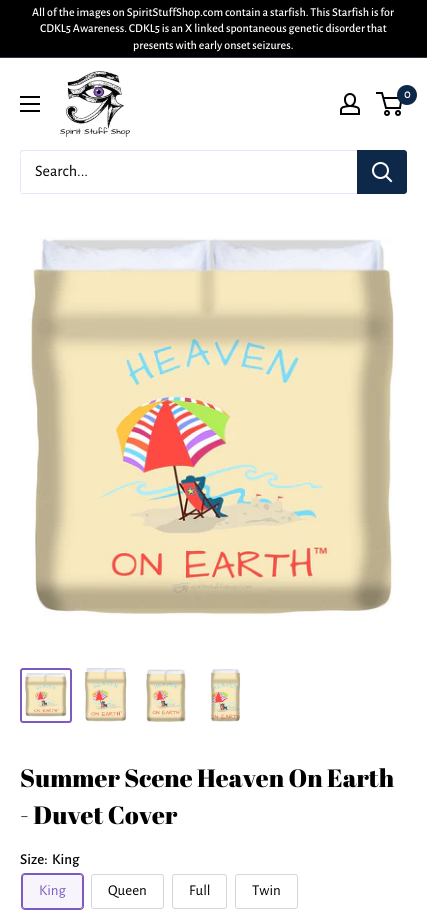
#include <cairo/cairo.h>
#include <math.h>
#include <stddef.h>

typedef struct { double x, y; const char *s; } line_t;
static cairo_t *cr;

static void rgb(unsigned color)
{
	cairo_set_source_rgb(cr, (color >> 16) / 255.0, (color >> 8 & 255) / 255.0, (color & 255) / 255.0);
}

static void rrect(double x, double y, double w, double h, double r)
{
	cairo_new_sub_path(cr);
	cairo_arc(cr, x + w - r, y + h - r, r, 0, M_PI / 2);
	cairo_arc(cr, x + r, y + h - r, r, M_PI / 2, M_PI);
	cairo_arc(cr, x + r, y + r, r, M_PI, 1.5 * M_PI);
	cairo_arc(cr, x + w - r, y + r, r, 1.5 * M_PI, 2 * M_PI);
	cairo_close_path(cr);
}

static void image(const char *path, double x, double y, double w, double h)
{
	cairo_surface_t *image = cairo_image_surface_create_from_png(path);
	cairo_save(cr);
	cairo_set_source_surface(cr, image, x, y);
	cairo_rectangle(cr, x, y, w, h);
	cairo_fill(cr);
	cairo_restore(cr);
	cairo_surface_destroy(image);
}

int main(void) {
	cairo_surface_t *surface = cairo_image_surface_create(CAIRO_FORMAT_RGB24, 427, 924);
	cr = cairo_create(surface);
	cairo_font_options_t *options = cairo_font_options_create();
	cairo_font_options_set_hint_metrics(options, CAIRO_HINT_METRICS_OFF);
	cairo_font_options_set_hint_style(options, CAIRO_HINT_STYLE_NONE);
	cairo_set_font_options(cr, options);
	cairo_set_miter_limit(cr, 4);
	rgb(0xffffff);
	cairo_paint(cr);
	rgb(0x000000);
	cairo_rectangle(cr, 0, 0, 427, 57);
	cairo_fill(cr);
	rgb(0x313548);
	cairo_rectangle(cr, 0, 57, 427, 1);
	cairo_fill(cr);
	image("img/1.png", 60, 71, 70, 66);
	image("img/2.png", 340, 93, 20, 22);
	cairo_arc(cr, 387, 113, 2, 0, 2 * M_PI);
	rgb(0x000000);
	cairo_stroke(cr);
	cairo_arc(cr, 398, 113, 2, 0, 2 * M_PI);
	cairo_stroke(cr);
	cairo_new_path(cr);
	cairo_move_to(cr, 383.5, 98);
	cairo_line_to(cr, 401.5, 98);
	cairo_line_to(cr, 400, 108);
	cairo_line_to(cr, 386, 108);
	cairo_line_to(cr, 382, 93);
	cairo_line_to(cr, 376, 93);
	cairo_stroke(cr);
	rgb(0x0e284a);
	cairo_arc(cr, 407, 95, 10, 0, 2 * M_PI);
	cairo_fill(cr);
	image("img/3.png", 20, 96, 20, 16);
	rgb(0xe3e7fa);
	cairo_new_path(cr);
	cairo_move_to(cr, 21, 193);
	cairo_curve_to(cr, 21, 194, 22, 194, 23, 194);
	cairo_line_to(cr, 404, 194);
	cairo_curve_to(cr, 406, 194, 407, 193, 407, 191);
	cairo_line_to(cr, 407, 153);
	cairo_curve_to(cr, 407, 152, 407, 151, 406, 151);
	cairo_line_to(cr, 406, 184);
	cairo_curve_to(cr, 406, 186, 408, 193, 403, 193);
	cairo_close_path(cr);
	cairo_fill(cr);
	cairo_new_path(cr);
	cairo_move_to(cr, 24, 151);
	cairo_line_to(cr, 406, 151);
	cairo_curve_to(cr, 406, 150, 405, 150, 404, 150);
	cairo_line_to(cr, 23, 150);
	cairo_curve_to(cr, 21, 150, 20, 151, 20, 153);
	cairo_line_to(cr, 20, 191);
	cairo_curve_to(cr, 20, 192, 20, 193, 21, 193);
	cairo_line_to(cr, 21, 160);
	cairo_curve_to(cr, 21, 158, 19, 151, 24, 151);
	cairo_close_path(cr);
	cairo_fill(cr);
	rgb(0x0e284a);
	cairo_new_path(cr);
	cairo_move_to(cr, 357, 150);
	cairo_line_to(cr, 404, 150);
	cairo_curve_to(cr, 405.5, 150, 407, 151.5, 407, 153);
	cairo_line_to(cr, 407, 191);
	cairo_curve_to(cr, 407, 192.5, 405.5, 194, 404, 194);
	cairo_line_to(cr, 357, 194);
	cairo_close_path(cr);
	cairo_fill(cr);
	cairo_new_path(cr);
	cairo_move_to(cr, 391, 181);
	cairo_line_to(cr, 386, 176);
	rgb(0xffffff);
	cairo_set_line_cap(cr, CAIRO_LINE_CAP_SQUARE);
	cairo_stroke(cr);
	cairo_arc(cr, 380.5, 170.5, 7.5, 0, 2 * M_PI);
	cairo_set_line_cap(cr, CAIRO_LINE_CAP_BUTT);
	cairo_stroke(cr);
	image("img/4.png", 28, 237, 368, 379);
	rrect(21, 669, 50, 53, 2);
	rgb(0x7d5abf);
	cairo_stroke(cr);
	image("img/5.png", 24, 673, 43, 44);
	image("img/6.png", 84, 668, 43, 54);
	image("img/7.png", 146, 669, 40, 54);
	image("img/8.png", 210, 669, 31, 53);
	rrect(21.5, 873.5, 62, 36, 3.5);
	cairo_set_line_width(cr, 1);
	cairo_stroke(cr);
	cairo_set_source_rgba(cr, 0.49, 0.353, 0.749, 0.06);
	cairo_rectangle(cr, 22, 874, 61, 35);
	cairo_fill(cr);
	rrect(22.5, 874.5, 60, 34, 2.5);
	rgb(0x7d5abf);
	cairo_stroke(cr);
	rrect(91.5, 874.5, 72, 34, 2.5);
	rgb(0xd4d6d8);
	cairo_stroke(cr);
	rrect(172.5, 874.5, 54, 34, 2.5);
	cairo_stroke(cr);
	rrect(235.5, 874.5, 62, 34, 2.5);
	cairo_stroke(cr);
	cairo_select_font_face(cr, "Alegreya Sans Medium", CAIRO_FONT_SLANT_NORMAL, CAIRO_FONT_WEIGHT_NORMAL);
	cairo_set_font_size(cr, 12);
	rgb(0xffffff);
	{
		static const line_t items[] = {
			{32, 16, "All of the images on SpiritStuffShop.com contain a starfish. This Starfish is for"},
			{40, 32, "CDKL5 Awareness. CDKL5 is an X linked spontaneous genetic disorder that"},
			{133, 49, "presents with early onset seizures."},
		};
		for (size_t i = 0; i < sizeof items / sizeof *items; i++) {
			cairo_move_to(cr, items[i].x, items[i].y);
			cairo_show_text(cr, items[i].s);
		}
	}
	cairo_set_font_size(cr, 13);
	cairo_move_to(cr, 404, 98);
	cairo_show_text(cr, "0");
	cairo_select_font_face(cr, "Alegreya Sans", CAIRO_FONT_SLANT_NORMAL, CAIRO_FONT_WEIGHT_NORMAL);
	cairo_set_font_size(cr, 16);
	rgb(0x000000);
	cairo_move_to(cr, 35, 176);
	cairo_show_text(cr, "Search...");
	cairo_select_font_face(cr, "Abril Fatface", CAIRO_FONT_SLANT_NORMAL, CAIRO_FONT_WEIGHT_NORMAL);
	cairo_set_font_size(cr, 25);
	cairo_move_to(cr, 20, 787);
	cairo_show_text(cr, "Summer Scene Heaven On Earth");
	cairo_move_to(cr, 20, 824);
	cairo_show_text(cr, "- Duvet Cover");
	cairo_select_font_face(cr, "Alegreya Sans Medium", CAIRO_FONT_SLANT_NORMAL, CAIRO_FONT_WEIGHT_NORMAL);
	cairo_set_font_size(cr, 15);
	cairo_move_to(cr, 20, 864);
	cairo_show_text(cr, "Size:");
	cairo_move_to(cr, 52, 864);
	cairo_show_text(cr, "King");
	cairo_select_font_face(cr, "Alegreya Sans", CAIRO_FONT_SLANT_NORMAL, CAIRO_FONT_WEIGHT_NORMAL);
	rgb(0x7d5abf);
	cairo_move_to(cr, 39, 895);
	cairo_show_text(cr, "King");
	rgb(0x000000);
	{
		static const line_t items[] = {
			{108, 895, "Queen"},
			{189, 895, "Full"},
			{252, 895, "Twin"},
		};
		for (size_t i = 0; i < sizeof items / sizeof *items; i++) {
			cairo_move_to(cr, items[i].x, items[i].y);
			cairo_show_text(cr, items[i].s);
		}
	}
	cairo_surface_write_to_png(surface, "page.png");
	cairo_font_options_destroy(options);
	cairo_destroy(cr);
	cairo_surface_destroy(surface);
	return 0;
}
